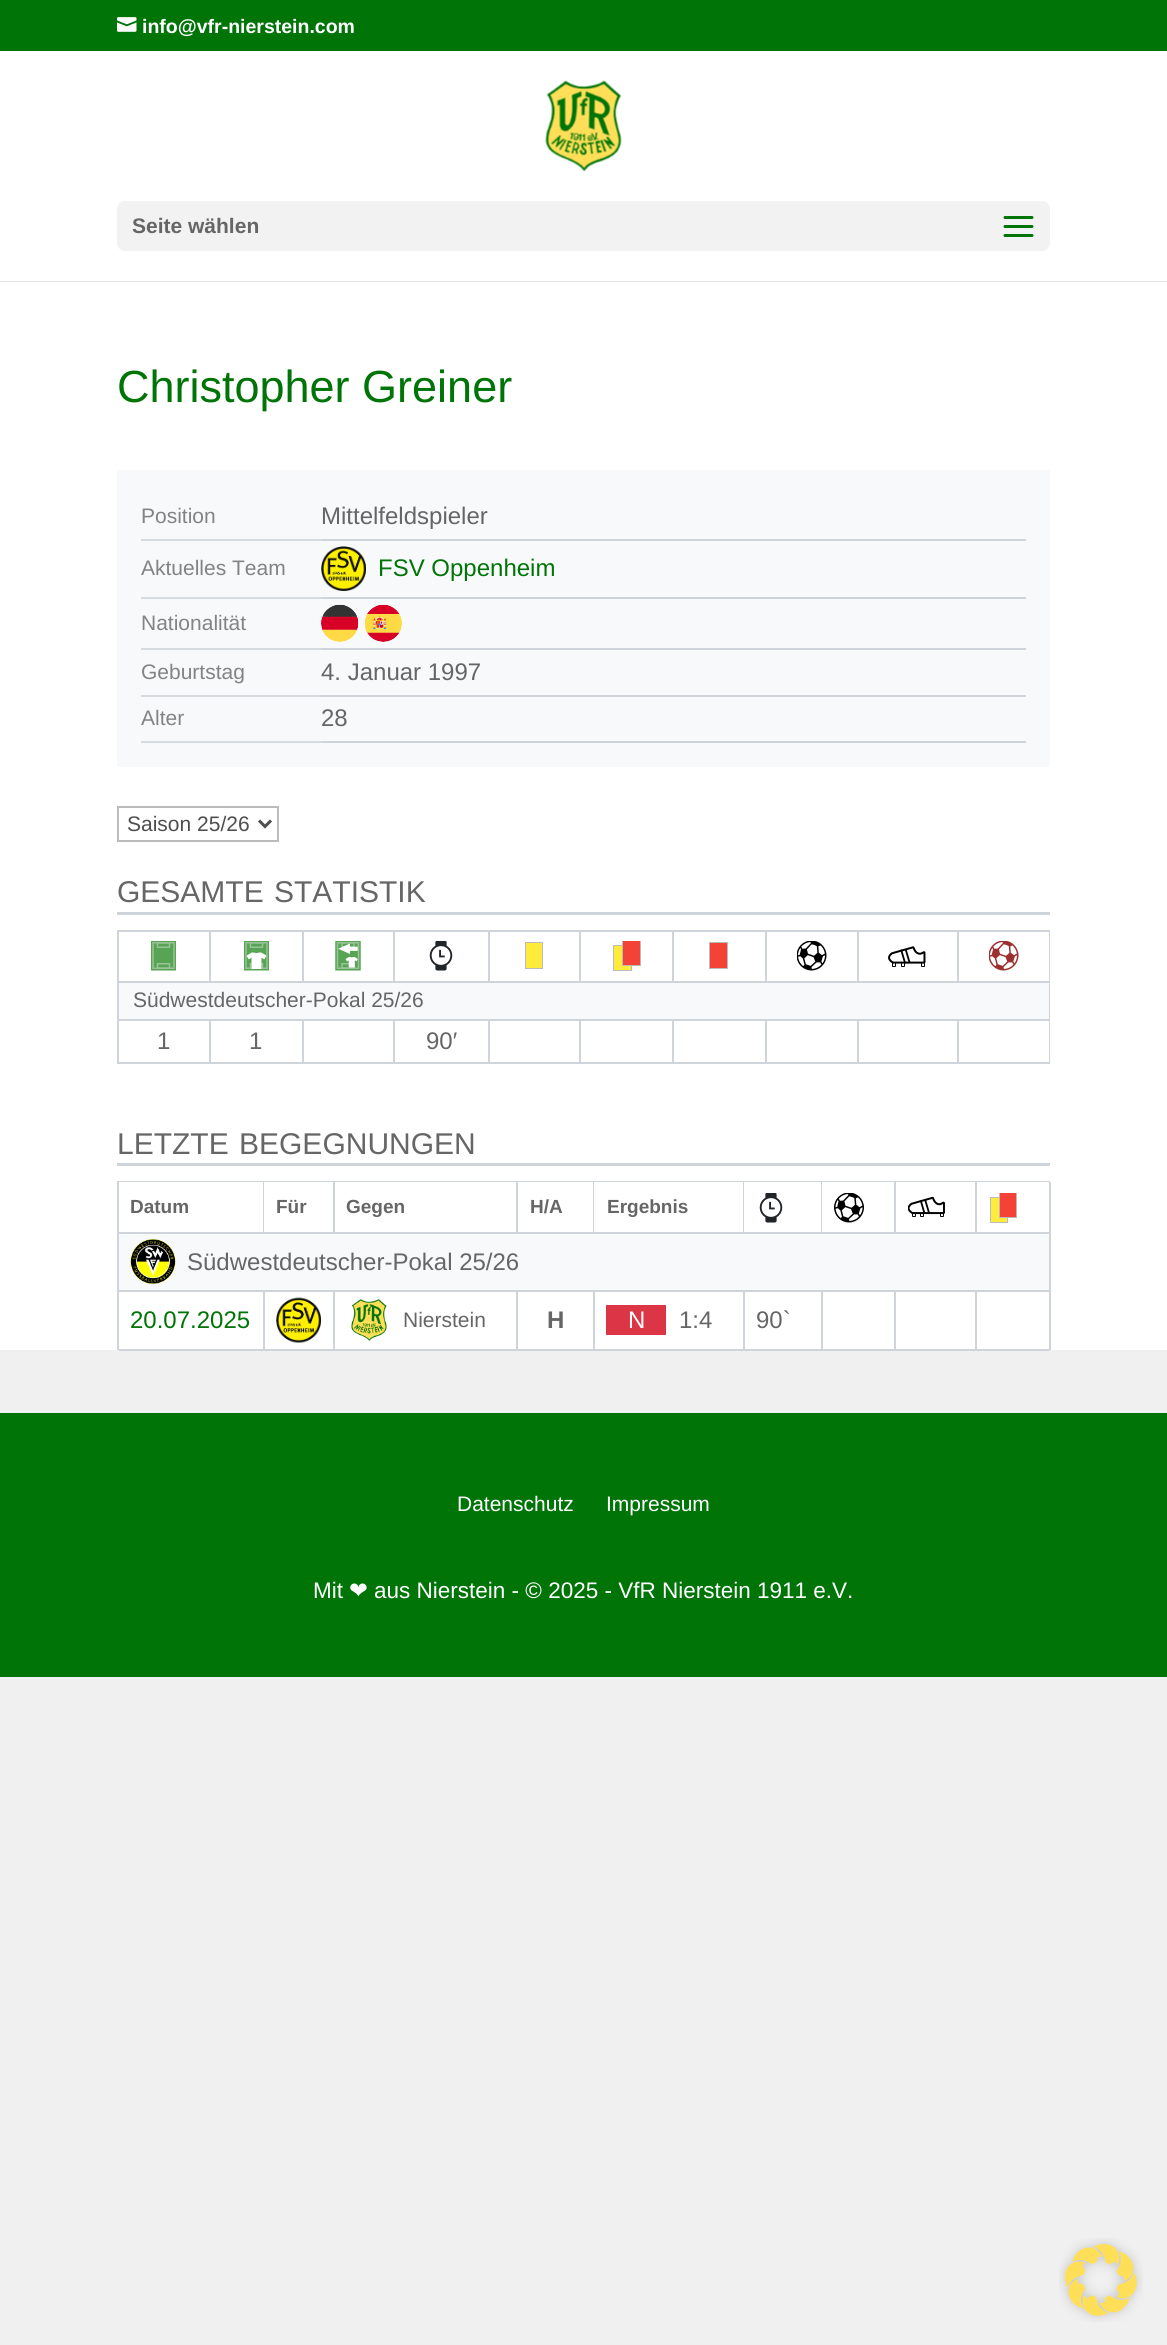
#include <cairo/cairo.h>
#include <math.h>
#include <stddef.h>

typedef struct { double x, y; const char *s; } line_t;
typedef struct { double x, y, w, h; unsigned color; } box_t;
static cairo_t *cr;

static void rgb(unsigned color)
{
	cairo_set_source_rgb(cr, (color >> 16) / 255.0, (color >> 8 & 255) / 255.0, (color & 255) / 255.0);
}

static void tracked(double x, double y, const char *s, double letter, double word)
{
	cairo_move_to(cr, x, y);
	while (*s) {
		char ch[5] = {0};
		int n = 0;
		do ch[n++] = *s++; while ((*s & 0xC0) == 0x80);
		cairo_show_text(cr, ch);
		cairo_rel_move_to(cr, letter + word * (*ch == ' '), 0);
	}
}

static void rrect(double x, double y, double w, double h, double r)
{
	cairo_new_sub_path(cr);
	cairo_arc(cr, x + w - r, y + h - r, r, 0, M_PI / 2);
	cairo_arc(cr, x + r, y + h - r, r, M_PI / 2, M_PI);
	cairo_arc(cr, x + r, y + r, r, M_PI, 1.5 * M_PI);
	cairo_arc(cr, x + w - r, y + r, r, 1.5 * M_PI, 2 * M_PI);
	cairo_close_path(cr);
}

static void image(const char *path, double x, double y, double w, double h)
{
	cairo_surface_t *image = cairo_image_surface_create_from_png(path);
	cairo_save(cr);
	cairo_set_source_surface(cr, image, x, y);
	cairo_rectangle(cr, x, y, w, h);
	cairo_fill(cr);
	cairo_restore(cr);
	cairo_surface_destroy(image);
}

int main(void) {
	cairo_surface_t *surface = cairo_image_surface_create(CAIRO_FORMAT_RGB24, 1167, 2345);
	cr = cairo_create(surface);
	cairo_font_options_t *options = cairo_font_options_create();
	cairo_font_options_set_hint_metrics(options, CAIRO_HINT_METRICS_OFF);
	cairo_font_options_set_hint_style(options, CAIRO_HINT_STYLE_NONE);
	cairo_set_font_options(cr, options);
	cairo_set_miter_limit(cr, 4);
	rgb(0xf0f0f0);
	cairo_paint(cr);
	rgb(0x007407);
	cairo_rectangle(cr, 0, 0, 1167, 51);
	cairo_fill(cr);
	image("img/1.png", 117, 17, 20, 15);
	rgb(0xe6e6e6);
	cairo_rectangle(cr, 0, 281, 1167, 1);
	cairo_fill(cr);
	rgb(0xffffff);
	cairo_rectangle(cr, 0, 51, 1167, 230);
	cairo_fill(cr);
	image("img/2.png", 545, 80, 77, 92);
	rgb(0xf2f2f2);
	rrect(117, 201, 933, 50, 8);
	cairo_fill(cr);
	image("img/3.png", 1003, 216, 31, 21);
	{
		static const box_t items[] = {
			{0, 282, 1167, 1068, 0xffffff},
			{117, 470, 933, 297, 0xf8f9fa},
			{141, 539, 180, 2, 0xd6dbe0},
			{321, 539, 705, 2, 0xced4da},
			{141, 597, 180, 2, 0xd6dbe0},
			{321, 597, 705, 2, 0xced4da},
		};
		for (size_t i = 0; i < sizeof items / sizeof *items; i++) {
			rgb(items[i].color);
			cairo_rectangle(cr, items[i].x, items[i].y, items[i].w, items[i].h);
			cairo_fill(cr);
		}
	}
	image("img/4.png", 321, 546, 45, 45);
	rgb(0xd6dbe0);
	cairo_rectangle(cr, 141, 648, 180, 2);
	cairo_fill(cr);
	rgb(0xced4da);
	cairo_rectangle(cr, 321, 648, 705, 2);
	cairo_fill(cr);
	image("img/5.png", 321, 604, 38, 38);
	image("img/6.png", 364, 604, 38, 38);
	{
		static const box_t items[] = {
			{141, 695, 180, 2, 0xd6dbe0},
			{321, 695, 705, 2, 0xced4da},
			{141, 741, 180, 2, 0xd6dbe0},
			{321, 741, 705, 2, 0xced4da},
		};
		for (size_t i = 0; i < sizeof items / sizeof *items; i++) {
			rgb(items[i].color);
			cairo_rectangle(cr, items[i].x, items[i].y, items[i].w, items[i].h);
			cairo_fill(cr);
		}
	}
	cairo_rectangle(cr, 118, 807, 160, 34);
	rgb(0xbbbbbb);
	cairo_stroke(cr);
	cairo_new_path(cr);
	cairo_move_to(cr, 259, 820.5);
	cairo_line_to(cr, 265, 826.5);
	cairo_line_to(cr, 271, 820.5);
	rgb(0x4e4e4e);
	cairo_set_line_width(cr, 3);
	cairo_stroke(cr);
	{
		static const box_t items[] = {
			{117, 912, 933, 3, 0xced4da},
			{117, 930, 933, 2, 0xced4da},
			{117, 930, 2, 134, 0xced4da},
			{209, 932, 2, 51, 0xced4da},
			{119, 981, 91, 2, 0xced4da},
		};
		for (size_t i = 0; i < sizeof items / sizeof *items; i++) {
			rgb(items[i].color);
			cairo_rectangle(cr, items[i].x, items[i].y, items[i].w, items[i].h);
			cairo_fill(cr);
		}
	}
	image("img/7.png", 151, 941, 25, 30);
	cairo_rectangle(cr, 302, 932, 2, 51);
	cairo_fill(cr);
	cairo_rectangle(cr, 210, 981, 93, 2);
	cairo_fill(cr);
	image("img/8.png", 244, 941, 25, 30);
	cairo_rectangle(cr, 393, 932, 2, 51);
	cairo_fill(cr);
	cairo_rectangle(cr, 303, 981, 92, 2);
	cairo_fill(cr);
	image("img/9.png", 335, 941, 26, 30);
	cairo_rectangle(cr, 488, 932, 2, 51);
	cairo_fill(cr);
	cairo_rectangle(cr, 395, 981, 94, 2);
	cairo_fill(cr);
	image("img/10.png", 429, 941, 24, 30);
	cairo_rectangle(cr, 579, 932, 2, 51);
	cairo_fill(cr);
	cairo_rectangle(cr, 489, 981, 92, 2);
	cairo_fill(cr);
	rgb(0xffeb3b);
	cairo_rectangle(cr, 525.5, 942.5, 17, 26);
	cairo_fill_preserve(cr);
	rgb(0xbbbbbb);
	cairo_set_line_width(cr, 1);
	cairo_stroke(cr);
	rgb(0xced4da);
	cairo_rectangle(cr, 672, 932, 2, 51);
	cairo_fill(cr);
	cairo_rectangle(cr, 581, 981, 93, 2);
	cairo_fill(cr);
	rgb(0xffeb3b);
	cairo_rectangle(cr, 613.5, 945.5, 18, 25);
	cairo_fill_preserve(cr);
	rgb(0xbbbbbb);
	cairo_stroke(cr);
	rgb(0xf44336);
	cairo_rectangle(cr, 623, 941, 17, 24);
	cairo_fill(cr);
	cairo_save(cr);
	cairo_rectangle(cr, 612, 941, 30, 30);
	cairo_clip(cr);
	cairo_rectangle(cr, 622.5, 940.5, 18, 25);
	rgb(0xbbbbbb);
	cairo_stroke(cr);
	cairo_restore(cr);
	rgb(0xced4da);
	cairo_rectangle(cr, 765, 932, 2, 51);
	cairo_fill(cr);
	cairo_rectangle(cr, 674, 981, 93, 2);
	cairo_fill(cr);
	rgb(0xf44336);
	cairo_rectangle(cr, 709.5, 942.5, 18, 26);
	cairo_fill_preserve(cr);
	rgb(0xbbbbbb);
	cairo_stroke(cr);
	rgb(0xced4da);
	cairo_rectangle(cr, 857, 932, 2, 51);
	cairo_fill(cr);
	cairo_rectangle(cr, 767, 981, 91, 2);
	cairo_fill(cr);
	image("img/11.png", 797, 941, 30, 30);
	cairo_rectangle(cr, 957, 932, 2, 51);
	cairo_fill(cr);
	cairo_rectangle(cr, 858, 981, 101, 2);
	cairo_fill(cr);
	image("img/12.png", 888, 946, 38, 21);
	cairo_rectangle(cr, 1049, 932, 1, 88);
	cairo_fill(cr);
	cairo_rectangle(cr, 959, 981, 91, 2);
	cairo_fill(cr);
	image("img/13.png", 989, 941, 30, 30);
	{
		static const box_t items[] = {
			{119, 983, 930, 36, 0xf8f9fa},
			{119, 1019, 931, 2, 0xced4da},
			{209, 1020, 2, 44, 0xced4da},
			{119, 1062, 91, 2, 0xced4da},
			{302, 1020, 2, 44, 0xced4da},
			{210, 1062, 93, 2, 0xced4da},
			{393, 1020, 2, 44, 0xced4da},
			{303, 1062, 92, 2, 0xced4da},
			{488, 1020, 2, 44, 0xced4da},
			{395, 1062, 94, 2, 0xced4da},
			{579, 1020, 2, 44, 0xced4da},
			{489, 1062, 92, 2, 0xced4da},
			{672, 1020, 2, 44, 0xced4da},
			{581, 1062, 93, 2, 0xced4da},
			{765, 1020, 2, 44, 0xced4da},
			{674, 1062, 93, 2, 0xced4da},
			{857, 1020, 2, 44, 0xced4da},
			{767, 1062, 91, 2, 0xced4da},
			{957, 1020, 2, 44, 0xced4da},
			{858, 1062, 101, 2, 0xced4da},
			{1049, 1020, 1, 44, 0xced4da},
			{959, 1062, 91, 2, 0xced4da},
			{117, 1163, 933, 3, 0xced4da},
			{117, 1181, 933, 1, 0xced4da},
			{117, 1181, 2, 169, 0xced4da},
			{821, 1182, 1, 51, 0xced4da},
			{744, 1232, 78, 2, 0xced4da},
		};
		for (size_t i = 0; i < sizeof items / sizeof *items; i++) {
			rgb(items[i].color);
			cairo_rectangle(cr, items[i].x, items[i].y, items[i].w, items[i].h);
			cairo_fill(cr);
		}
	}
	image("img/10.png", 759, 1193, 24, 30);
	cairo_rectangle(cr, 894, 1182, 2, 51);
	cairo_fill(cr);
	cairo_rectangle(cr, 822, 1232, 74, 2);
	cairo_fill(cr);
	image("img/14.png", 834, 1193, 30, 30);
	{
		static const box_t items[] = {
			{975, 1182, 2, 51, 0xced4da},
			{1049, 1182, 2, 168, 0xced4da},
			{896, 1232, 154, 2, 0xced4da},
		};
		for (size_t i = 0; i < sizeof items / sizeof *items; i++) {
			rgb(items[i].color);
			cairo_rectangle(cr, items[i].x, items[i].y, items[i].w, items[i].h);
			cairo_fill(cr);
		}
	}
	image("img/15.png", 908, 1196, 37, 21);
	{
		static const box_t items[] = {
			{263, 1182, 1, 51, 0xced4da},
			{119, 1232, 145, 2, 0xced4da},
			{333, 1182, 2, 51, 0xced4da},
			{264, 1232, 71, 2, 0xced4da},
			{516, 1182, 2, 51, 0xced4da},
			{335, 1232, 183, 2, 0xced4da},
			{593, 1182, 1, 51, 0xced4da},
			{518, 1232, 76, 2, 0xced4da},
			{743, 1182, 1, 51, 0xced4da},
			{594, 1232, 150, 2, 0xced4da},
		};
		for (size_t i = 0; i < sizeof items / sizeof *items; i++) {
			rgb(items[i].color);
			cairo_rectangle(cr, items[i].x, items[i].y, items[i].w, items[i].h);
			cairo_fill(cr);
		}
	}
	rgb(0xffeb3b);
	cairo_rectangle(cr, 990.5, 1197.5, 17, 25);
	cairo_fill_preserve(cr);
	rgb(0xbbbbbb);
	cairo_stroke(cr);
	rgb(0xf44336);
	cairo_rectangle(cr, 1000, 1193, 16, 24);
	cairo_fill(cr);
	cairo_save(cr);
	cairo_rectangle(cr, 989, 1193, 30, 30);
	cairo_clip(cr);
	cairo_rectangle(cr, 999.5, 1192.5, 17, 25);
	rgb(0xbbbbbb);
	cairo_stroke(cr);
	cairo_restore(cr);
	rgb(0xf8f9fa);
	cairo_rectangle(cr, 119, 1234, 930, 56);
	cairo_fill(cr);
	rgb(0xced4da);
	cairo_rectangle(cr, 119, 1290, 931, 2);
	cairo_fill(cr);
	image("img/16.png", 130, 1239, 46, 45);
	{
		static const box_t items[] = {
			{263, 1292, 2, 58, 0xced4da},
			{119, 1349, 145, 2, 0xced4da},
			{333, 1292, 2, 58, 0xced4da},
			{264, 1349, 71, 2, 0xced4da},
		};
		for (size_t i = 0; i < sizeof items / sizeof *items; i++) {
			rgb(items[i].color);
			cairo_rectangle(cr, items[i].x, items[i].y, items[i].w, items[i].h);
			cairo_fill(cr);
		}
	}
	image("img/17.png", 276, 1297, 45, 46);
	cairo_rectangle(cr, 516, 1292, 2, 58);
	cairo_fill(cr);
	cairo_rectangle(cr, 335, 1349, 183, 2);
	cairo_fill(cr);
	image("img/18.png", 351, 1299, 36, 42);
	{
		static const box_t items[] = {
			{593, 1292, 2, 58, 0xced4da},
			{518, 1349, 76, 2, 0xced4da},
			{743, 1292, 2, 58, 0xced4da},
			{594, 1349, 150, 2, 0xced4da},
			{606, 1305, 60, 30, 0xdc3545},
			{821, 1292, 2, 58, 0xced4da},
			{744, 1349, 78, 2, 0xced4da},
			{894, 1292, 2, 58, 0xced4da},
			{822, 1349, 74, 2, 0xced4da},
			{975, 1292, 2, 58, 0xced4da},
			{896, 1349, 154, 2, 0xced4da},
			{0, 1413, 1167, 264, 0x007407},
		};
		for (size_t i = 0; i < sizeof items / sizeof *items; i++) {
			rgb(items[i].color);
			cairo_rectangle(cr, items[i].x, items[i].y, items[i].w, items[i].h);
			cairo_fill(cr);
		}
	}
	image("img/19.png", 1059, 2238, 84, 84);
	cairo_select_font_face(cr, "Liberation Sans", CAIRO_FONT_SLANT_NORMAL, CAIRO_FONT_WEIGHT_BOLD);
	cairo_set_font_size(cr, 19.5);
	rgb(0xffffff);
	cairo_move_to(cr, 142, 33);
	cairo_show_text(cr, "info@vfr-nierstein.com");
	cairo_set_font_size(cr, 21);
	rgb(0x666666);
	cairo_move_to(cr, 132, 233);
	cairo_show_text(cr, "Seite wählen");
	cairo_select_font_face(cr, "Liberation Sans", CAIRO_FONT_SLANT_NORMAL, CAIRO_FONT_WEIGHT_NORMAL);
	cairo_set_font_size(cr, 45);
	rgb(0x007407);
	cairo_move_to(cr, 117, 402);
	cairo_show_text(cr, "Christopher Greiner");
	cairo_set_font_size(cr, 21);
	rgb(0x838384);
	cairo_move_to(cr, 141, 523);
	cairo_show_text(cr, "Position");
	cairo_set_font_size(cr, 24);
	rgb(0x666666);
	cairo_move_to(cr, 321, 524);
	cairo_show_text(cr, "Mittelfeldspieler");
	cairo_set_font_size(cr, 21);
	rgb(0x838384);
	cairo_move_to(cr, 141, 575);
	cairo_show_text(cr, "Aktuelles Team");
	cairo_set_font_size(cr, 24);
	rgb(0x007407);
	cairo_move_to(cr, 378, 576);
	cairo_show_text(cr, "FSV Oppenheim");
	cairo_set_font_size(cr, 21);
	rgb(0x838384);
	cairo_move_to(cr, 141, 630);
	cairo_show_text(cr, "Nationalität");
	cairo_move_to(cr, 141, 679);
	cairo_show_text(cr, "Geburtstag");
	cairo_set_font_size(cr, 24);
	rgb(0x666666);
	cairo_move_to(cr, 321, 680);
	cairo_show_text(cr, "4. Januar 1997");
	cairo_set_font_size(cr, 21);
	rgb(0x838384);
	cairo_move_to(cr, 141, 725);
	cairo_show_text(cr, "Alter");
	cairo_set_font_size(cr, 24);
	rgb(0x666666);
	cairo_move_to(cr, 321, 726);
	cairo_show_text(cr, "28");
	cairo_set_font_size(cr, 21);
	rgb(0x4e4e4e);
	cairo_move_to(cr, 127, 831);
	cairo_show_text(cr, "Saison 25/26");
	cairo_set_font_size(cr, 30);
	rgb(0x666666);
	tracked(117, 902, "GESAMTE STATISTIK", 0, 2);
	cairo_set_font_size(cr, 21);
	cairo_move_to(cr, 133, 1007);
	cairo_show_text(cr, "Südwestdeutscher-Pokal 25/26");
	cairo_set_font_size(cr, 24);
	{
		static const line_t items[] = {
			{157, 1049, "1"},
			{249, 1049, "1"},
			{426, 1049, "90′"},
		};
		for (size_t i = 0; i < sizeof items / sizeof *items; i++) {
			cairo_move_to(cr, items[i].x, items[i].y);
			cairo_show_text(cr, items[i].s);
		}
	}
	cairo_set_font_size(cr, 30);
	tracked(117, 1154, "LETZTE BEGEGNUNGEN", 0, 2);
	cairo_select_font_face(cr, "Liberation Sans", CAIRO_FONT_SLANT_NORMAL, CAIRO_FONT_WEIGHT_BOLD);
	cairo_set_font_size(cr, 19);
	{
		static const line_t items[] = {
			{130, 1213, "Datum"},
			{276, 1213, "Für"},
			{346, 1213, "Gegen"},
			{530, 1213, "H/A"},
			{607, 1213, "Ergebnis"},
		};
		for (size_t i = 0; i < sizeof items / sizeof *items; i++) {
			cairo_move_to(cr, items[i].x, items[i].y);
			cairo_show_text(cr, items[i].s);
		}
	}
	cairo_select_font_face(cr, "Liberation Sans", CAIRO_FONT_SLANT_NORMAL, CAIRO_FONT_WEIGHT_NORMAL);
	cairo_set_font_size(cr, 24);
	cairo_move_to(cr, 187, 1270);
	cairo_show_text(cr, "Südwestdeutscher-Pokal 25/26");
	rgb(0x007407);
	cairo_move_to(cr, 130, 1328);
	cairo_show_text(cr, "20.07.2025");
	cairo_set_font_size(cr, 21);
	rgb(0x666666);
	cairo_move_to(cr, 403, 1327);
	cairo_show_text(cr, "Nierstein");
	cairo_select_font_face(cr, "Liberation Sans", CAIRO_FONT_SLANT_NORMAL, CAIRO_FONT_WEIGHT_BOLD);
	cairo_set_font_size(cr, 24);
	cairo_move_to(cr, 547, 1328);
	cairo_show_text(cr, "H");
	cairo_select_font_face(cr, "Liberation Sans", CAIRO_FONT_SLANT_NORMAL, CAIRO_FONT_WEIGHT_NORMAL);
	rgb(0xffffff);
	cairo_move_to(cr, 628, 1328);
	cairo_show_text(cr, "N");
	rgb(0x666666);
	cairo_move_to(cr, 679, 1328);
	cairo_show_text(cr, "1:4");
	cairo_move_to(cr, 756, 1328);
	cairo_show_text(cr, "90`");
	cairo_set_font_size(cr, 21);
	rgb(0xffffff);
	cairo_move_to(cr, 457, 1511);
	cairo_show_text(cr, "Datenschutz");
	cairo_move_to(cr, 606, 1511);
	cairo_show_text(cr, "Impressum");
	cairo_set_font_size(cr, 22.5);
	cairo_move_to(cr, 313, 1598);
	cairo_show_text(cr, "Mit");
	cairo_select_font_face(cr, "DejaVu Sans", CAIRO_FONT_SLANT_NORMAL, CAIRO_FONT_WEIGHT_NORMAL);
	cairo_move_to(cr, 349, 1598);
	cairo_show_text(cr, "❤");
	cairo_select_font_face(cr, "Liberation Sans", CAIRO_FONT_SLANT_NORMAL, CAIRO_FONT_WEIGHT_NORMAL);
	cairo_move_to(cr, 374, 1598);
	cairo_show_text(cr, "aus Nierstein - © 2025 - VfR Nierstein 1911 e.V.");
	cairo_surface_write_to_png(surface, "page.png");
	cairo_font_options_destroy(options);
	cairo_destroy(cr);
	cairo_surface_destroy(surface);
	return 0;
}
